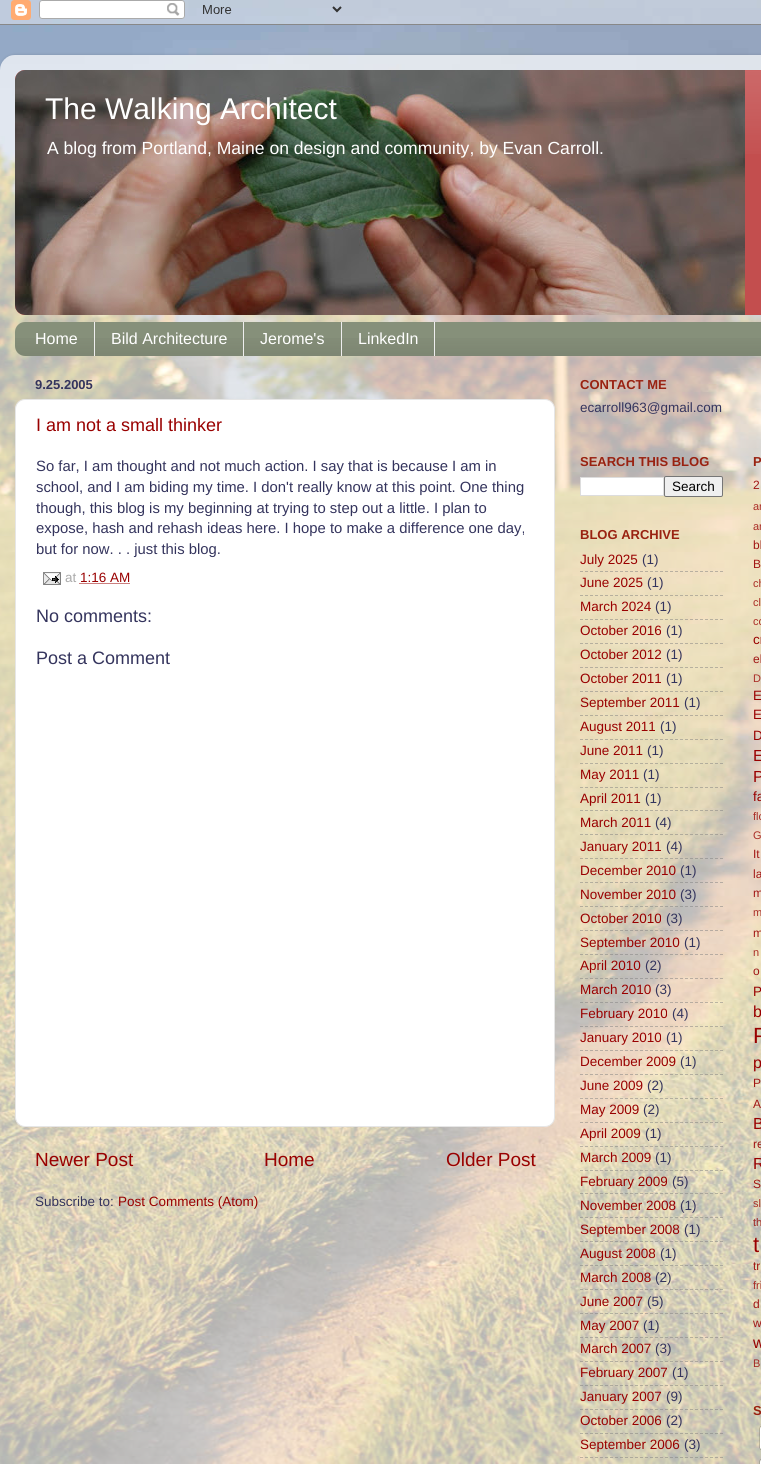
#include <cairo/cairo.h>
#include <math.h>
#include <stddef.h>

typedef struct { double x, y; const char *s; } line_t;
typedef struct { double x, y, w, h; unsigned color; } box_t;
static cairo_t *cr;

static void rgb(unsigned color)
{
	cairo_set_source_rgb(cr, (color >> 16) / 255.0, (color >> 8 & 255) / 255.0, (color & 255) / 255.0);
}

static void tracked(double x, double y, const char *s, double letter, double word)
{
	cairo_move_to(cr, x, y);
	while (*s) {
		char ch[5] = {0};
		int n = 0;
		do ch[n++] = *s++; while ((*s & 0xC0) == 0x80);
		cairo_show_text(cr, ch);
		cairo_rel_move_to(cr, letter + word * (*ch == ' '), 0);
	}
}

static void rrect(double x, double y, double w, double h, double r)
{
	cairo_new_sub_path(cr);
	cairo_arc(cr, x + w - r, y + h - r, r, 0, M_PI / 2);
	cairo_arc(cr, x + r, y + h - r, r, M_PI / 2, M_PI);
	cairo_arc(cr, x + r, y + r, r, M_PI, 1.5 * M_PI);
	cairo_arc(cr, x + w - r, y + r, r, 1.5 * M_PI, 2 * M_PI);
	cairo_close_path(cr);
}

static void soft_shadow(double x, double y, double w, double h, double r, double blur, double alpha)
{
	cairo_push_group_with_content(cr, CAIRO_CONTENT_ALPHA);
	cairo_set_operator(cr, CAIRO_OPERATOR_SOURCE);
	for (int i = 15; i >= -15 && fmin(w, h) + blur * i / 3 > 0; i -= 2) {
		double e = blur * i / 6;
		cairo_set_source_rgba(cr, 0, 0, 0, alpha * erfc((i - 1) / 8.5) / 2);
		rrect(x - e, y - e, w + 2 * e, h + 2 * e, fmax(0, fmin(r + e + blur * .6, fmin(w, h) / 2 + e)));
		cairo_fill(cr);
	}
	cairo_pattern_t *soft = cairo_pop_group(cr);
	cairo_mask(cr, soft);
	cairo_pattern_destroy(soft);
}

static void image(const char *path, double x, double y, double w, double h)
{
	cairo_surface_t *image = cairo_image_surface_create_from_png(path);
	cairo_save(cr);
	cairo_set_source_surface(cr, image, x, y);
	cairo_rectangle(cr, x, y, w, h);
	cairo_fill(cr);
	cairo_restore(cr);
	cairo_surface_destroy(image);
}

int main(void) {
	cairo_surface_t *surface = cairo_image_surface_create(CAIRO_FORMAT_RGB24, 761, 1464);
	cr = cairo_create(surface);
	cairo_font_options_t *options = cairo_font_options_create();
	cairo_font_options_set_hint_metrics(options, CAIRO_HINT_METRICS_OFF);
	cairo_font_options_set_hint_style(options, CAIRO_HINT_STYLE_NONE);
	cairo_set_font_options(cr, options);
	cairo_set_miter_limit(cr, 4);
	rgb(0xffffff);
	cairo_paint(cr);
	image("img/1.png", 0, 0, 761, 1464);
	image("img/2.png", 0, 0, 761, 25);
	cairo_save(cr);
	cairo_set_fill_rule(cr, CAIRO_FILL_RULE_EVEN_ODD);
	cairo_new_path(cr);
	cairo_move_to(cr, 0, 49);
	cairo_line_to(cr, 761, 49);
	cairo_line_to(cr, 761, 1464);
	cairo_line_to(cr, 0, 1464);
	cairo_close_path(cr);
	cairo_move_to(cr, 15, 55);
	cairo_line_to(cr, 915, 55);
	cairo_curve_to(cr, 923.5, 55, 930, 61.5, 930, 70);
	cairo_line_to(cr, 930, 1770);
	cairo_curve_to(cr, 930, 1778.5, 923.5, 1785, 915, 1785);
	cairo_line_to(cr, 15, 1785);
	cairo_curve_to(cr, 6.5, 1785, 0, 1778.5, 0, 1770);
	cairo_line_to(cr, 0, 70);
	cairo_curve_to(cr, 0, 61.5, 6.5, 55, 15, 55);
	cairo_close_path(cr);
	cairo_clip(cr);
	rgb(0x000000);
	soft_shadow(0, 55, 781, 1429, 15, 1.5, 0.15);
	cairo_restore(cr);
	image("img/3.png", 0, 55, 761, 1409);
	rgb(0xc34e4e);
	rrect(15, 70, 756, 245, 10);
	cairo_fill(cr);
	image("img/4.png", 15, 70, 746, 84);
	image("img/5.png", 15, 70, 730, 245);
	rgb(0x86907a);
	rrect(15, 322, 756, 34, 10);
	cairo_fill(cr);
	image("img/6.png", 15, 338, 746, 18);
	{
		static const box_t items[] = {
			{94, 322, 1, 34, 0xeeeeee},
			{243, 322, 1, 34, 0xeeeeee},
			{341, 322, 1, 34, 0xeeeeee},
			{434, 322, 1, 34, 0xeeeeee},
		};
		for (size_t i = 0; i < sizeof items / sizeof *items; i++) {
			rgb(items[i].color);
			cairo_rectangle(cr, items[i].x, items[i].y, items[i].w, items[i].h);
			cairo_fill(cr);
		}
	}
	rgb(0xffffff);
	rrect(15.5, 399.5, 539, 727, 9.5);
	cairo_fill_preserve(cr);
	rgb(0xe6e6e6);
	cairo_set_line_width(cr, 1);
	cairo_stroke(cr);
	image("img/7.png", 43, 572, 18, 13);
	cairo_new_path(cr);
	cairo_move_to(cr, 79.5, 583.5);
	cairo_line_to(cr, 130, 583.5);
	rgb(0x990000);
	cairo_set_dash(cr, (double[]){1, 1}, 2, 0);
	cairo_stroke(cr);
	rgb(0xffffff);
	cairo_rectangle(cr, 580.5, 477.5, 83, 18);
	cairo_fill_preserve(cr);
	rgb(0xdddddd);
	cairo_set_dash(cr, NULL, 0, 0);
	cairo_stroke(cr);
	rgb(0xefefef);
	rrect(664.5, 476.5, 58, 20, 1.5);
	cairo_fill_preserve(cr);
	rgb(0x767676);
	cairo_stroke(cr);
	cairo_new_path(cr);
	cairo_move_to(cr, 580, 571.5);
	cairo_line_to(cr, 723, 571.5);
	cairo_set_source_rgba(cr, 0.502, 0.502, 0.502, 0.5);
	cairo_set_dash(cr, (double[]){3, 2}, 2, 0);
	cairo_stroke(cr);
	cairo_new_path(cr);
	cairo_move_to(cr, 580, 595.5);
	cairo_line_to(cr, 723, 595.5);
	cairo_stroke(cr);
	cairo_new_path(cr);
	cairo_move_to(cr, 580, 619.5);
	cairo_line_to(cr, 723, 619.5);
	cairo_stroke(cr);
	cairo_new_path(cr);
	cairo_move_to(cr, 580, 643.5);
	cairo_line_to(cr, 723, 643.5);
	cairo_stroke(cr);
	cairo_new_path(cr);
	cairo_move_to(cr, 580, 667.5);
	cairo_line_to(cr, 723, 667.5);
	cairo_stroke(cr);
	cairo_new_path(cr);
	cairo_move_to(cr, 580, 691.5);
	cairo_line_to(cr, 723, 691.5);
	cairo_stroke(cr);
	cairo_new_path(cr);
	cairo_move_to(cr, 580, 715.5);
	cairo_line_to(cr, 723, 715.5);
	cairo_stroke(cr);
	cairo_new_path(cr);
	cairo_move_to(cr, 580, 739.5);
	cairo_line_to(cr, 723, 739.5);
	cairo_stroke(cr);
	cairo_new_path(cr);
	cairo_move_to(cr, 580, 763.5);
	cairo_line_to(cr, 723, 763.5);
	cairo_stroke(cr);
	cairo_new_path(cr);
	cairo_move_to(cr, 580, 787.5);
	cairo_line_to(cr, 723, 787.5);
	cairo_stroke(cr);
	cairo_new_path(cr);
	cairo_move_to(cr, 580, 810.5);
	cairo_line_to(cr, 723, 810.5);
	cairo_stroke(cr);
	cairo_new_path(cr);
	cairo_move_to(cr, 580, 834.5);
	cairo_line_to(cr, 723, 834.5);
	cairo_stroke(cr);
	cairo_new_path(cr);
	cairo_move_to(cr, 580, 858.5);
	cairo_line_to(cr, 723, 858.5);
	cairo_stroke(cr);
	cairo_new_path(cr);
	cairo_move_to(cr, 580, 882.5);
	cairo_line_to(cr, 723, 882.5);
	cairo_stroke(cr);
	cairo_new_path(cr);
	cairo_move_to(cr, 580, 906.5);
	cairo_line_to(cr, 723, 906.5);
	cairo_stroke(cr);
	cairo_new_path(cr);
	cairo_move_to(cr, 580, 930.5);
	cairo_line_to(cr, 723, 930.5);
	cairo_stroke(cr);
	cairo_new_path(cr);
	cairo_move_to(cr, 580, 954.5);
	cairo_line_to(cr, 723, 954.5);
	cairo_stroke(cr);
	cairo_new_path(cr);
	cairo_move_to(cr, 580, 978.5);
	cairo_line_to(cr, 723, 978.5);
	cairo_stroke(cr);
	cairo_new_path(cr);
	cairo_move_to(cr, 580, 1002.5);
	cairo_line_to(cr, 723, 1002.5);
	cairo_stroke(cr);
	cairo_new_path(cr);
	cairo_move_to(cr, 580, 1026.5);
	cairo_line_to(cr, 723, 1026.5);
	cairo_stroke(cr);
	cairo_new_path(cr);
	cairo_move_to(cr, 580, 1050.5);
	cairo_line_to(cr, 723, 1050.5);
	cairo_stroke(cr);
	cairo_new_path(cr);
	cairo_move_to(cr, 580, 1074.5);
	cairo_line_to(cr, 723, 1074.5);
	cairo_stroke(cr);
	cairo_new_path(cr);
	cairo_move_to(cr, 580, 1098.5);
	cairo_line_to(cr, 723, 1098.5);
	cairo_stroke(cr);
	cairo_new_path(cr);
	cairo_move_to(cr, 580, 1122.5);
	cairo_line_to(cr, 723, 1122.5);
	cairo_stroke(cr);
	cairo_new_path(cr);
	cairo_move_to(cr, 580, 1146.5);
	cairo_line_to(cr, 723, 1146.5);
	cairo_stroke(cr);
	cairo_new_path(cr);
	cairo_move_to(cr, 580, 1170.5);
	cairo_line_to(cr, 723, 1170.5);
	cairo_stroke(cr);
	cairo_new_path(cr);
	cairo_move_to(cr, 580, 1193.5);
	cairo_line_to(cr, 723, 1193.5);
	cairo_stroke(cr);
	cairo_new_path(cr);
	cairo_move_to(cr, 580, 1217.5);
	cairo_line_to(cr, 723, 1217.5);
	cairo_stroke(cr);
	cairo_new_path(cr);
	cairo_move_to(cr, 580, 1241.5);
	cairo_line_to(cr, 723, 1241.5);
	cairo_stroke(cr);
	cairo_new_path(cr);
	cairo_move_to(cr, 580, 1265.5);
	cairo_line_to(cr, 723, 1265.5);
	cairo_stroke(cr);
	cairo_new_path(cr);
	cairo_move_to(cr, 580, 1289.5);
	cairo_line_to(cr, 723, 1289.5);
	cairo_stroke(cr);
	cairo_new_path(cr);
	cairo_move_to(cr, 580, 1313.5);
	cairo_line_to(cr, 723, 1313.5);
	cairo_stroke(cr);
	cairo_new_path(cr);
	cairo_move_to(cr, 580, 1337.5);
	cairo_line_to(cr, 723, 1337.5);
	cairo_stroke(cr);
	cairo_new_path(cr);
	cairo_move_to(cr, 580, 1361.5);
	cairo_line_to(cr, 723, 1361.5);
	cairo_stroke(cr);
	cairo_new_path(cr);
	cairo_move_to(cr, 580, 1385.5);
	cairo_line_to(cr, 723, 1385.5);
	cairo_stroke(cr);
	cairo_new_path(cr);
	cairo_move_to(cr, 580, 1409.5);
	cairo_line_to(cr, 723, 1409.5);
	cairo_stroke(cr);
	cairo_new_path(cr);
	cairo_move_to(cr, 580, 1433.5);
	cairo_line_to(cr, 723, 1433.5);
	cairo_stroke(cr);
	cairo_new_path(cr);
	cairo_move_to(cr, 580, 1457.5);
	cairo_line_to(cr, 723, 1457.5);
	cairo_stroke(cr);
	image("img/8.png", 759, 1426, 2, 22);
	image("img/9.png", 759, 1448, 2, 2);
	image("img/10.png", 759, 1459, 2, 5);
	cairo_select_font_face(cr, "Liberation Sans", CAIRO_FONT_SLANT_NORMAL, CAIRO_FONT_WEIGHT_NORMAL);
	cairo_set_font_size(cr, 30);
	rgb(0xffffff);
	cairo_move_to(cr, 45, 119);
	cairo_show_text(cr, "The Walking Architect");
	cairo_set_font_size(cr, 17.55);
	cairo_move_to(cr, 47, 154);
	cairo_show_text(cr, "A blog from Portland, Maine on design and community, by Evan Carroll.");
	cairo_set_font_size(cr, 16);
	{
		static const line_t items[] = {
			{35, 344, "Home"},
			{111, 344, "Bild Architecture"},
			{260, 344, "Jerome's"},
			{358, 344, "LinkedIn"},
		};
		for (size_t i = 0; i < sizeof items / sizeof *items; i++) {
			cairo_move_to(cr, items[i].x, items[i].y);
			cairo_show_text(cr, items[i].s);
		}
	}
	cairo_select_font_face(cr, "Liberation Sans", CAIRO_FONT_SLANT_NORMAL, CAIRO_FONT_WEIGHT_BOLD);
	cairo_set_font_size(cr, 13);
	rgb(0x34345d);
	cairo_move_to(cr, 35, 389);
	cairo_show_text(cr, "9.25.2005");
	cairo_select_font_face(cr, "Liberation Sans", CAIRO_FONT_SLANT_NORMAL, CAIRO_FONT_WEIGHT_NORMAL);
	cairo_set_font_size(cr, 18);
	rgb(0x990000);
	cairo_move_to(cr, 36, 431);
	cairo_show_text(cr, "I am not a small thinker");
	cairo_set_font_size(cr, 14.85);
	rgb(0x34345d);
	{
		static const line_t items[] = {
			{36, 471, "So far, I am thought and not much action. I say that is because I am in"},
			{36, 492, "school, and I am biding my time. I don't really know at this point. One thing"},
			{36, 513, "though, this blog is my beginning at trying to step out a little. I plan to"},
			{36, 533, "expose, hash and rehash ideas here. I hope to make a difference one day,"},
			{36, 554, "but for now. . . just this blog."},
		};
		for (size_t i = 0; i < sizeof items / sizeof *items; i++) {
			cairo_move_to(cr, items[i].x, items[i].y);
			cairo_show_text(cr, items[i].s);
		}
	}
	cairo_set_font_size(cr, 13.5);
	rgb(0xaaaaaa);
	cairo_move_to(cr, 65, 582);
	cairo_show_text(cr, "at");
	rgb(0x990000);
	cairo_move_to(cr, 80, 582);
	cairo_show_text(cr, "1:16 AM");
	cairo_set_font_size(cr, 18);
	rgb(0x34345d);
	cairo_move_to(cr, 36, 622);
	cairo_show_text(cr, "No comments:");
	cairo_move_to(cr, 36, 664);
	cairo_show_text(cr, "Post a Comment");
	cairo_set_font_size(cr, 19);
	rgb(0x990000);
	{
		static const line_t items[] = {
			{35, 1166, "Newer Post"},
			{264, 1166, "Home"},
			{446, 1166, "Older Post"},
		};
		for (size_t i = 0; i < sizeof items / sizeof *items; i++) {
			cairo_move_to(cr, items[i].x, items[i].y);
			cairo_show_text(cr, items[i].s);
		}
	}
	cairo_set_font_size(cr, 13.5);
	rgb(0x34345d);
	cairo_move_to(cr, 35, 1206);
	cairo_show_text(cr, "Subscribe to:");
	rgb(0x990000);
	cairo_move_to(cr, 118, 1206);
	cairo_show_text(cr, "Post Comments (Atom)");
	cairo_select_font_face(cr, "Liberation Sans", CAIRO_FONT_SLANT_NORMAL, CAIRO_FONT_WEIGHT_BOLD);
	cairo_set_font_size(cr, 13);
	rgb(0x992211);
	cairo_move_to(cr, 580, 389);
	cairo_show_text(cr, "CONTACT ME");
	cairo_select_font_face(cr, "Liberation Sans", CAIRO_FONT_SLANT_NORMAL, CAIRO_FONT_WEIGHT_NORMAL);
	cairo_set_font_size(cr, 13.5);
	rgb(0x34345d);
	cairo_move_to(cr, 580, 412);
	cairo_show_text(cr, "ecarroll963@gmail.com");
	cairo_select_font_face(cr, "Liberation Sans", CAIRO_FONT_SLANT_NORMAL, CAIRO_FONT_WEIGHT_BOLD);
	cairo_set_font_size(cr, 13);
	rgb(0x992211);
	cairo_move_to(cr, 580, 466);
	cairo_show_text(cr, "SEARCH THIS BLOG");
	cairo_select_font_face(cr, "Liberation Sans", CAIRO_FONT_SLANT_NORMAL, CAIRO_FONT_WEIGHT_NORMAL);
	cairo_set_font_size(cr, 13.5);
	rgb(0x000000);
	cairo_move_to(cr, 672, 491);
	cairo_show_text(cr, "Search");
	cairo_select_font_face(cr, "Liberation Sans", CAIRO_FONT_SLANT_NORMAL, CAIRO_FONT_WEIGHT_BOLD);
	cairo_set_font_size(cr, 13);
	rgb(0x992211);
	cairo_move_to(cr, 580, 539);
	cairo_show_text(cr, "BLOG ARCHIVE");
	cairo_select_font_face(cr, "Liberation Sans", CAIRO_FONT_SLANT_NORMAL, CAIRO_FONT_WEIGHT_NORMAL);
	cairo_set_font_size(cr, 13.5);
	rgb(0x990000);
	cairo_move_to(cr, 580, 564);
	cairo_show_text(cr, "July 2025");
	rgb(0x34345d);
	cairo_move_to(cr, 642, 564);
	cairo_show_text(cr, "(1)");
	rgb(0x990000);
	cairo_move_to(cr, 580, 587);
	cairo_show_text(cr, "June 2025");
	rgb(0x34345d);
	cairo_move_to(cr, 647, 587);
	cairo_show_text(cr, "(1)");
	rgb(0x990000);
	cairo_move_to(cr, 580, 611);
	cairo_show_text(cr, "March 2024");
	rgb(0x34345d);
	cairo_move_to(cr, 655, 611);
	cairo_show_text(cr, "(1)");
	rgb(0x990000);
	cairo_move_to(cr, 580, 635);
	cairo_show_text(cr, "October 2016");
	rgb(0x34345d);
	cairo_move_to(cr, 666, 635);
	cairo_show_text(cr, "(1)");
	rgb(0x990000);
	cairo_move_to(cr, 580, 659);
	cairo_show_text(cr, "October 2012");
	rgb(0x34345d);
	cairo_move_to(cr, 666, 659);
	cairo_show_text(cr, "(1)");
	rgb(0x990000);
	cairo_move_to(cr, 580, 683);
	cairo_show_text(cr, "October 2011");
	rgb(0x34345d);
	cairo_move_to(cr, 666, 683);
	cairo_show_text(cr, "(1)");
	rgb(0x990000);
	cairo_move_to(cr, 580, 707);
	cairo_show_text(cr, "September 2011");
	rgb(0x34345d);
	cairo_move_to(cr, 684, 707);
	cairo_show_text(cr, "(1)");
	rgb(0x990000);
	cairo_move_to(cr, 580, 731);
	cairo_show_text(cr, "August 2011");
	rgb(0x34345d);
	cairo_move_to(cr, 660, 731);
	cairo_show_text(cr, "(1)");
	rgb(0x990000);
	cairo_move_to(cr, 580, 755);
	cairo_show_text(cr, "June 2011");
	rgb(0x34345d);
	cairo_move_to(cr, 647, 755);
	cairo_show_text(cr, "(1)");
	rgb(0x990000);
	cairo_move_to(cr, 580, 779);
	cairo_show_text(cr, "May 2011");
	rgb(0x34345d);
	cairo_move_to(cr, 643, 779);
	cairo_show_text(cr, "(1)");
	rgb(0x990000);
	cairo_move_to(cr, 580, 803);
	cairo_show_text(cr, "April 2011");
	rgb(0x34345d);
	cairo_move_to(cr, 645, 803);
	cairo_show_text(cr, "(1)");
	rgb(0x990000);
	cairo_move_to(cr, 580, 827);
	cairo_show_text(cr, "March 2011");
	rgb(0x34345d);
	cairo_move_to(cr, 655, 827);
	cairo_show_text(cr, "(4)");
	rgb(0x990000);
	cairo_move_to(cr, 580, 851);
	cairo_show_text(cr, "January 2011");
	rgb(0x34345d);
	cairo_move_to(cr, 666, 851);
	cairo_show_text(cr, "(4)");
	rgb(0x990000);
	cairo_move_to(cr, 580, 875);
	cairo_show_text(cr, "December 2010");
	rgb(0x34345d);
	cairo_move_to(cr, 680, 875);
	cairo_show_text(cr, "(1)");
	rgb(0x990000);
	cairo_move_to(cr, 580, 899);
	cairo_show_text(cr, "November 2010");
	rgb(0x34345d);
	cairo_move_to(cr, 680, 899);
	cairo_show_text(cr, "(3)");
	rgb(0x990000);
	cairo_move_to(cr, 580, 923);
	cairo_show_text(cr, "October 2010");
	rgb(0x34345d);
	cairo_move_to(cr, 666, 923);
	cairo_show_text(cr, "(3)");
	rgb(0x990000);
	cairo_move_to(cr, 580, 947);
	cairo_show_text(cr, "September 2010");
	rgb(0x34345d);
	cairo_move_to(cr, 684, 947);
	cairo_show_text(cr, "(1)");
	rgb(0x990000);
	cairo_move_to(cr, 580, 970);
	cairo_show_text(cr, "April 2010");
	rgb(0x34345d);
	cairo_move_to(cr, 645, 970);
	cairo_show_text(cr, "(2)");
	rgb(0x990000);
	cairo_move_to(cr, 580, 994);
	cairo_show_text(cr, "March 2010");
	rgb(0x34345d);
	cairo_move_to(cr, 655, 994);
	cairo_show_text(cr, "(3)");
	rgb(0x990000);
	cairo_move_to(cr, 580, 1018);
	cairo_show_text(cr, "February 2010");
	rgb(0x34345d);
	cairo_move_to(cr, 672, 1018);
	cairo_show_text(cr, "(4)");
	rgb(0x990000);
	cairo_move_to(cr, 580, 1042);
	cairo_show_text(cr, "January 2010");
	rgb(0x34345d);
	cairo_move_to(cr, 666, 1042);
	cairo_show_text(cr, "(1)");
	rgb(0x990000);
	cairo_move_to(cr, 580, 1066);
	cairo_show_text(cr, "December 2009");
	rgb(0x34345d);
	cairo_move_to(cr, 680, 1066);
	cairo_show_text(cr, "(1)");
	rgb(0x990000);
	cairo_move_to(cr, 580, 1090);
	cairo_show_text(cr, "June 2009");
	rgb(0x34345d);
	cairo_move_to(cr, 647, 1090);
	cairo_show_text(cr, "(2)");
	rgb(0x990000);
	cairo_move_to(cr, 580, 1114);
	cairo_show_text(cr, "May 2009");
	rgb(0x34345d);
	cairo_move_to(cr, 643, 1114);
	cairo_show_text(cr, "(2)");
	rgb(0x990000);
	cairo_move_to(cr, 580, 1138);
	cairo_show_text(cr, "April 2009");
	rgb(0x34345d);
	cairo_move_to(cr, 645, 1138);
	cairo_show_text(cr, "(1)");
	rgb(0x990000);
	cairo_move_to(cr, 580, 1162);
	cairo_show_text(cr, "March 2009");
	rgb(0x34345d);
	cairo_move_to(cr, 655, 1162);
	cairo_show_text(cr, "(1)");
	rgb(0x990000);
	cairo_move_to(cr, 580, 1186);
	cairo_show_text(cr, "February 2009");
	rgb(0x34345d);
	cairo_move_to(cr, 672, 1186);
	cairo_show_text(cr, "(5)");
	rgb(0x990000);
	cairo_move_to(cr, 580, 1210);
	cairo_show_text(cr, "November 2008");
	rgb(0x34345d);
	cairo_move_to(cr, 680, 1210);
	cairo_show_text(cr, "(1)");
	rgb(0x990000);
	cairo_move_to(cr, 580, 1234);
	cairo_show_text(cr, "September 2008");
	rgb(0x34345d);
	cairo_move_to(cr, 684, 1234);
	cairo_show_text(cr, "(1)");
	rgb(0x990000);
	cairo_move_to(cr, 580, 1258);
	cairo_show_text(cr, "August 2008");
	rgb(0x34345d);
	cairo_move_to(cr, 660, 1258);
	cairo_show_text(cr, "(1)");
	rgb(0x990000);
	cairo_move_to(cr, 580, 1282);
	cairo_show_text(cr, "March 2008");
	rgb(0x34345d);
	cairo_move_to(cr, 655, 1282);
	cairo_show_text(cr, "(2)");
	rgb(0x990000);
	cairo_move_to(cr, 580, 1306);
	cairo_show_text(cr, "June 2007");
	rgb(0x34345d);
	cairo_move_to(cr, 647, 1306);
	cairo_show_text(cr, "(5)");
	rgb(0x990000);
	cairo_move_to(cr, 580, 1330);
	cairo_show_text(cr, "May 2007");
	rgb(0x34345d);
	cairo_move_to(cr, 643, 1330);
	cairo_show_text(cr, "(1)");
	rgb(0x990000);
	cairo_move_to(cr, 580, 1353);
	cairo_show_text(cr, "March 2007");
	rgb(0x34345d);
	cairo_move_to(cr, 655, 1353);
	cairo_show_text(cr, "(3)");
	rgb(0x990000);
	cairo_move_to(cr, 580, 1377);
	cairo_show_text(cr, "February 2007");
	rgb(0x34345d);
	cairo_move_to(cr, 672, 1377);
	cairo_show_text(cr, "(1)");
	rgb(0x990000);
	cairo_move_to(cr, 580, 1401);
	cairo_show_text(cr, "January 2007");
	rgb(0x34345d);
	cairo_move_to(cr, 666, 1401);
	cairo_show_text(cr, "(9)");
	rgb(0x990000);
	cairo_move_to(cr, 580, 1425);
	cairo_show_text(cr, "October 2006");
	rgb(0x34345d);
	cairo_move_to(cr, 666, 1425);
	cairo_show_text(cr, "(2)");
	rgb(0x990000);
	cairo_move_to(cr, 580, 1449);
	cairo_show_text(cr, "September 2006");
	rgb(0x34345d);
	cairo_move_to(cr, 684, 1449);
	cairo_show_text(cr, "(3)");
	cairo_select_font_face(cr, "Liberation Sans", CAIRO_FONT_SLANT_NORMAL, CAIRO_FONT_WEIGHT_BOLD);
	cairo_set_font_size(cr, 13);
	rgb(0x992211);
	cairo_move_to(cr, 753, 466);
	cairo_show_text(cr, "P");
	cairo_select_font_face(cr, "Liberation Sans", CAIRO_FONT_SLANT_NORMAL, CAIRO_FONT_WEIGHT_NORMAL);
	cairo_set_font_size(cr, 12);
	rgb(0xa11614);
	tracked(753, 489, "2", 0, 10);
	cairo_set_font_size(cr, 11);
	rgb(0xaa2d26);
	cairo_move_to(cr, 753, 510);
	cairo_show_text(cr, "ar");
	cairo_move_to(cr, 753, 530);
	cairo_show_text(cr, "ar");
	cairo_set_font_size(cr, 12);
	rgb(0xa11614);
	cairo_move_to(cr, 753, 549);
	cairo_show_text(cr, "bl");
	cairo_move_to(cr, 753, 568);
	cairo_show_text(cr, "B");
	cairo_set_font_size(cr, 11);
	rgb(0xaa2d26);
	{
		static const line_t items[] = {
			{753, 587, "ch"},
			{753, 606, "cl"},
			{753, 625, "co"},
		};
		for (size_t i = 0; i < sizeof items / sizeof *items; i++) {
			cairo_move_to(cr, items[i].x, items[i].y);
			cairo_show_text(cr, items[i].s);
		}
	}
	cairo_set_font_size(cr, 13.5);
	rgb(0x990000);
	cairo_move_to(cr, 753, 644);
	cairo_show_text(cr, "cr");
	cairo_set_font_size(cr, 12);
	rgb(0xa11614);
	cairo_move_to(cr, 753, 663);
	cairo_show_text(cr, "el");
	cairo_set_font_size(cr, 11);
	rgb(0xaa2d26);
	cairo_move_to(cr, 753, 682);
	cairo_show_text(cr, "D");
	cairo_set_font_size(cr, 13.5);
	rgb(0x990000);
	tracked(753, 700, "E", 0, 10);
	tracked(753, 719, "E", 0, 35);
	cairo_move_to(cr, 753, 740);
	cairo_show_text(cr, "D");
	cairo_set_font_size(cr, 16);
	cairo_move_to(cr, 753, 761);
	cairo_show_text(cr, "E");
	cairo_move_to(cr, 753, 782);
	cairo_show_text(cr, "P");
	cairo_set_font_size(cr, 13.5);
	cairo_move_to(cr, 753, 801);
	cairo_show_text(cr, "fa");
	cairo_set_font_size(cr, 11);
	rgb(0xaa2d26);
	cairo_move_to(cr, 753, 820);
	cairo_show_text(cr, "flo");
	cairo_move_to(cr, 753, 839);
	cairo_show_text(cr, "G");
	cairo_set_font_size(cr, 12);
	rgb(0xa11614);
	{
		static const line_t items[] = {
			{753, 858, "It"},
			{753, 878, "la"},
			{753, 897, "m"},
		};
		for (size_t i = 0; i < sizeof items / sizeof *items; i++) {
			cairo_move_to(cr, items[i].x, items[i].y);
			cairo_show_text(cr, items[i].s);
		}
	}
	cairo_set_font_size(cr, 11);
	rgb(0xaa2d26);
	tracked(753, 916, "m", 0, 19);
	cairo_set_font_size(cr, 12);
	rgb(0xa11614);
	tracked(753, 937, "m", 0, 20);
	cairo_set_font_size(cr, 11);
	rgb(0xaa2d26);
	cairo_move_to(cr, 753, 956);
	cairo_show_text(cr, "n");
	cairo_set_font_size(cr, 12);
	rgb(0xa11614);
	cairo_move_to(cr, 753, 975);
	cairo_show_text(cr, "o");
	cairo_set_font_size(cr, 13.5);
	rgb(0x990000);
	tracked(753, 996, "P", 0, 9);
	cairo_set_font_size(cr, 16);
	cairo_move_to(cr, 753, 1017);
	cairo_show_text(cr, "b");
	cairo_set_font_size(cr, 22);
	cairo_move_to(cr, 753, 1043);
	cairo_show_text(cr, "P");
	cairo_set_font_size(cr, 16);
	cairo_move_to(cr, 753, 1068);
	cairo_show_text(cr, "p");
	cairo_set_font_size(cr, 12);
	rgb(0xa11614);
	tracked(753, 1087, "P", 0, 20);
	cairo_move_to(cr, 753, 1108);
	cairo_show_text(cr, "A");
	cairo_set_font_size(cr, 16);
	rgb(0x990000);
	cairo_move_to(cr, 753, 1129);
	cairo_show_text(cr, "B");
	cairo_set_font_size(cr, 12);
	rgb(0xa11614);
	cairo_move_to(cr, 753, 1148);
	cairo_show_text(cr, "re");
	cairo_set_font_size(cr, 16);
	rgb(0x990000);
	cairo_move_to(cr, 753, 1169);
	cairo_show_text(cr, "R");
	cairo_set_font_size(cr, 12);
	rgb(0xa11614);
	tracked(753, 1188, "S", 0, 22);
	cairo_set_font_size(cr, 11);
	rgb(0xaa2d26);
	cairo_move_to(cr, 753, 1207);
	cairo_show_text(cr, "sl");
	rgb(0xa22825);
	cairo_move_to(cr, 753, 1226);
	cairo_show_text(cr, "th");
	cairo_set_font_size(cr, 22);
	rgb(0x990000);
	cairo_move_to(cr, 753, 1252);
	cairo_show_text(cr, "t");
	cairo_set_font_size(cr, 12);
	rgb(0xa11614);
	cairo_move_to(cr, 753, 1270);
	cairo_show_text(cr, "tr");
	cairo_set_font_size(cr, 11);
	rgb(0xaa2d26);
	cairo_move_to(cr, 753, 1289);
	cairo_show_text(cr, "fri");
	cairo_set_font_size(cr, 12);
	rgb(0xa11614);
	cairo_move_to(cr, 753, 1308);
	cairo_show_text(cr, "d");
	cairo_move_to(cr, 753, 1327);
	cairo_show_text(cr, "w");
	cairo_set_font_size(cr, 16);
	rgb(0x990000);
	cairo_move_to(cr, 753, 1348);
	cairo_show_text(cr, "w");
	cairo_set_font_size(cr, 11);
	rgb(0xa22825);
	cairo_move_to(cr, 753, 1367);
	cairo_show_text(cr, "B");
	cairo_select_font_face(cr, "Liberation Sans", CAIRO_FONT_SLANT_NORMAL, CAIRO_FONT_WEIGHT_BOLD);
	cairo_set_font_size(cr, 13);
	rgb(0x992211);
	cairo_move_to(cr, 753, 1415);
	cairo_show_text(cr, "S");
	cairo_surface_write_to_png(surface, "page.png");
	cairo_font_options_destroy(options);
	cairo_destroy(cr);
	cairo_surface_destroy(surface);
	return 0;
}
